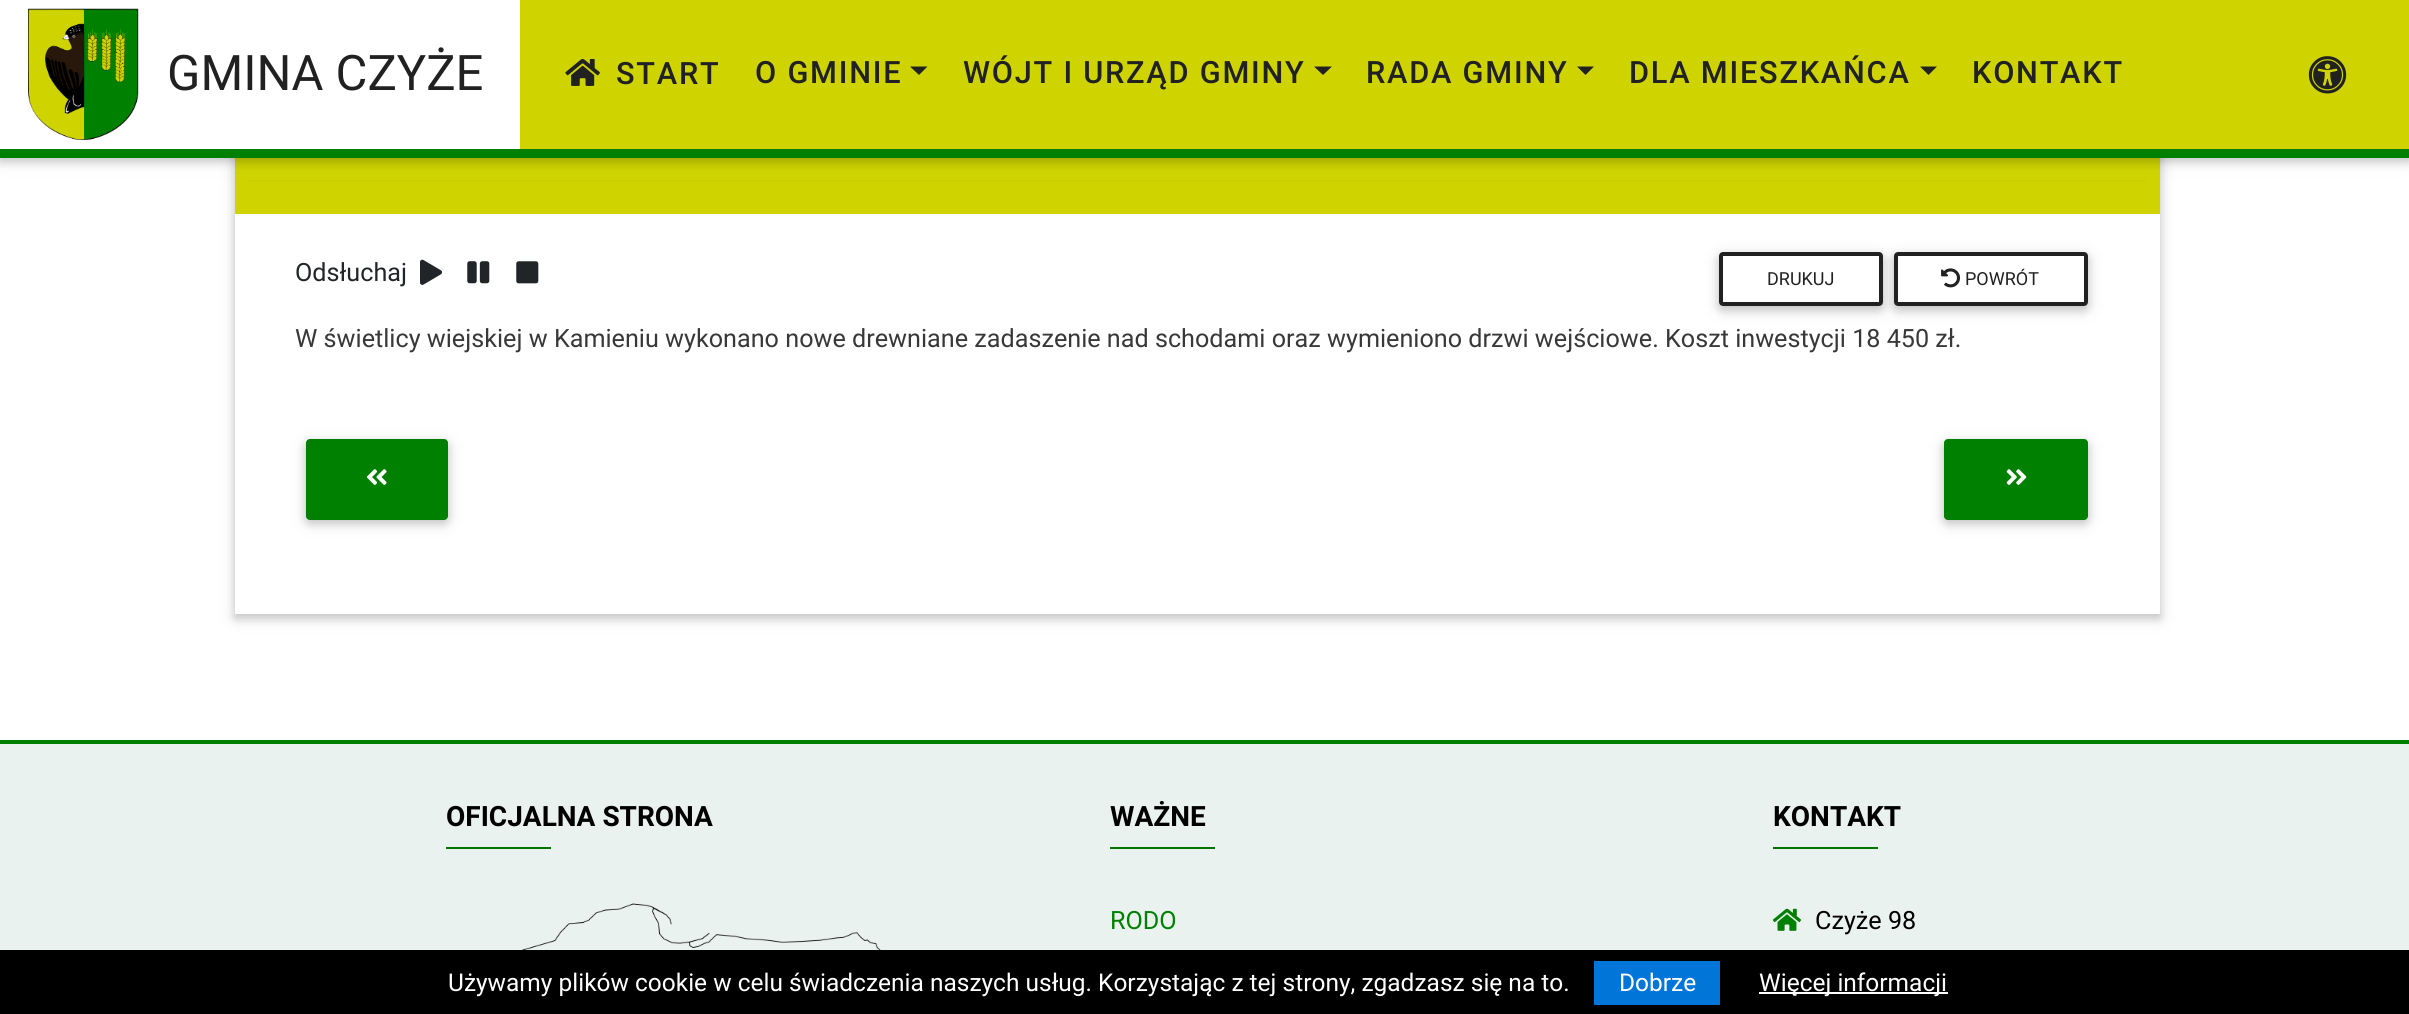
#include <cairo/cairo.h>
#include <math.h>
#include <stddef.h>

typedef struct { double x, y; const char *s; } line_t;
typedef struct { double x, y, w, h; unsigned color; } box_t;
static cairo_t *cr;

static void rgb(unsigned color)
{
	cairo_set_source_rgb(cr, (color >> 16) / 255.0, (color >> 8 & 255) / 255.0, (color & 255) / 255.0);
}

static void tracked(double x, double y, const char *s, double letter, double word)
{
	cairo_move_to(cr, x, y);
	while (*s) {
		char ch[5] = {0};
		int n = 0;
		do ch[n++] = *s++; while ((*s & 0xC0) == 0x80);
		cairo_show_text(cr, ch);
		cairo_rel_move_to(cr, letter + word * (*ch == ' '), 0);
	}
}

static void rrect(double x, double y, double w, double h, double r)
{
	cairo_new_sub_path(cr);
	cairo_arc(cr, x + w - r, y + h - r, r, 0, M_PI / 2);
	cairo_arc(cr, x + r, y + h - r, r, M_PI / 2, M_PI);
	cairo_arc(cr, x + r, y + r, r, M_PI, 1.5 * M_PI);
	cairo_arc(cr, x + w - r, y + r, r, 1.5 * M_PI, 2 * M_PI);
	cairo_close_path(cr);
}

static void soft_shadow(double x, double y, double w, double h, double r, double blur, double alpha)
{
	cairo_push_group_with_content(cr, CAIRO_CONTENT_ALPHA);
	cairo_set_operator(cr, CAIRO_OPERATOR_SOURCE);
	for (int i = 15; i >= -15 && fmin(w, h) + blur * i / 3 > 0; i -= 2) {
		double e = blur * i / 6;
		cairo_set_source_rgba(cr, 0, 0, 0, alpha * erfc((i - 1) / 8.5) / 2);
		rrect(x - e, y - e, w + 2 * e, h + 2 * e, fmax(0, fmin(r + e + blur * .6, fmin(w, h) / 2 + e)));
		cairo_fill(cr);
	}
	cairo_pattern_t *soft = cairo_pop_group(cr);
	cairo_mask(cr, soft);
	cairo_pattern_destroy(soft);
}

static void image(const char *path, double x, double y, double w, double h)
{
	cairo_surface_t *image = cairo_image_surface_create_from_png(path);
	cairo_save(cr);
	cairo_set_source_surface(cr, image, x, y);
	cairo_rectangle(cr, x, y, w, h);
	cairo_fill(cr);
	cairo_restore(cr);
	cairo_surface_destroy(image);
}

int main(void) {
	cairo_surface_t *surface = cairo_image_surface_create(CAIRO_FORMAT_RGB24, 2409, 1014);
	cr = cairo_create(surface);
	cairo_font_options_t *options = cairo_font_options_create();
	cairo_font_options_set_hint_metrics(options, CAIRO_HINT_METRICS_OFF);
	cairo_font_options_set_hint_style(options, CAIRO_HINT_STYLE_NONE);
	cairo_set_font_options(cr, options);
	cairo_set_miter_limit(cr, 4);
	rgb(0xffffff);
	cairo_paint(cr);
	rgb(0x000000);
	soft_shadow(235, -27, 1925, 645, 0, 9, 0.12);
	soft_shadow(235, -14, 1925, 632, 0, 4.5, 0.16);
	rgb(0xcfd401);
	cairo_rectangle(cr, 235, 158, 1925, 56);
	cairo_fill(cr);
	rgb(0xcacf01);
	cairo_rectangle(cr, 249, 180, 1897, 2);
	cairo_fill(cr);
	rgb(0x000000);
	soft_shadow(0, 4, 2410, 157, 0, 9, 0.12);
	soft_shadow(0, 4, 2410, 157, 0, 4.5, 0.16);
	{
		static const box_t items[] = {
			{520, 0, 1889, 149, 0xcfd401},
			{0, 149, 2409, 9, 0x008000},
			{0, 0, 520, 149, 0xffffff},
		};
		for (size_t i = 0; i < sizeof items / sizeof *items; i++) {
			rgb(items[i].color);
			cairo_rectangle(cr, items[i].x, items[i].y, items[i].w, items[i].h);
			cairo_fill(cr);
		}
	}
	image("img/1.png", 28, 8, 111, 132);
	image("img/2.png", 565, 59, 35, 27);
	rgb(0x212121);
	cairo_new_path(cr);
	cairo_move_to(cr, 910, 66.5);
	cairo_line_to(cr, 927.5, 66.5);
	cairo_line_to(cr, 919, 75);
	cairo_close_path(cr);
	cairo_fill(cr);
	cairo_new_path(cr);
	cairo_move_to(cr, 1314, 66.5);
	cairo_line_to(cr, 1332, 66.5);
	cairo_line_to(cr, 1323, 75);
	cairo_close_path(cr);
	cairo_fill(cr);
	cairo_new_path(cr);
	cairo_move_to(cr, 1577, 66.5);
	cairo_line_to(cr, 1594, 66.5);
	cairo_line_to(cr, 1585.5, 75);
	cairo_close_path(cr);
	cairo_fill(cr);
	cairo_new_path(cr);
	cairo_move_to(cr, 1920, 66.5);
	cairo_line_to(cr, 1937, 66.5);
	cairo_line_to(cr, 1928.5, 75);
	cairo_close_path(cr);
	cairo_fill(cr);
	image("img/3.png", 2308, 56, 39, 38);
	rgb(0xffffff);
	cairo_rectangle(cr, 235, 214, 1925, 400);
	cairo_fill(cr);
	image("img/4.png", 420, 259, 22, 26);
	image("img/5.png", 467, 261, 23, 23);
	image("img/6.png", 516, 261, 23, 23);
	cairo_save(cr);
	cairo_set_fill_rule(cr, CAIRO_FILL_RULE_EVEN_ODD);
	cairo_new_path(cr);
	cairo_move_to(cr, 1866, 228);
	cairo_line_to(cr, 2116, 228);
	cairo_line_to(cr, 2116, 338);
	cairo_line_to(cr, 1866, 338);
	cairo_close_path(cr);
	cairo_move_to(cr, 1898, 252);
	cairo_line_to(cr, 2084, 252);
	cairo_curve_to(cr, 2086, 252, 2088, 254, 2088, 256);
	cairo_line_to(cr, 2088, 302);
	cairo_curve_to(cr, 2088, 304, 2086, 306, 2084, 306);
	cairo_line_to(cr, 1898, 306);
	cairo_curve_to(cr, 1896, 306, 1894, 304, 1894, 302);
	cairo_line_to(cr, 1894, 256);
	cairo_curve_to(cr, 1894, 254, 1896, 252, 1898, 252);
	cairo_close_path(cr);
	cairo_clip(cr);
	rgb(0x000000);
	soft_shadow(1894, 256, 194, 54, 4, 9, 0.12);
	cairo_restore(cr);
	cairo_save(cr);
	cairo_set_fill_rule(cr, CAIRO_FILL_RULE_EVEN_ODD);
	cairo_new_path(cr);
	cairo_move_to(cr, 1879, 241);
	cairo_line_to(cr, 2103, 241);
	cairo_line_to(cr, 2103, 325);
	cairo_line_to(cr, 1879, 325);
	cairo_close_path(cr);
	cairo_move_to(cr, 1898, 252);
	cairo_line_to(cr, 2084, 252);
	cairo_curve_to(cr, 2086, 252, 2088, 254, 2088, 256);
	cairo_line_to(cr, 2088, 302);
	cairo_curve_to(cr, 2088, 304, 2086, 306, 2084, 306);
	cairo_line_to(cr, 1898, 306);
	cairo_curve_to(cr, 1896, 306, 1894, 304, 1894, 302);
	cairo_line_to(cr, 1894, 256);
	cairo_curve_to(cr, 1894, 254, 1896, 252, 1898, 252);
	cairo_close_path(cr);
	cairo_clip(cr);
	rgb(0x000000);
	soft_shadow(1894, 256, 194, 54, 4, 4.5, 0.16);
	cairo_restore(cr);
	rrect(1896, 254, 190, 50, 2);
	rgb(0x212121);
	cairo_set_line_width(cr, 4);
	cairo_stroke(cr);
	cairo_save(cr);
	cairo_set_fill_rule(cr, CAIRO_FILL_RULE_EVEN_ODD);
	cairo_new_path(cr);
	cairo_move_to(cr, 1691, 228);
	cairo_line_to(cr, 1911, 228);
	cairo_line_to(cr, 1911, 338);
	cairo_line_to(cr, 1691, 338);
	cairo_close_path(cr);
	cairo_move_to(cr, 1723, 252);
	cairo_line_to(cr, 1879, 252);
	cairo_curve_to(cr, 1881, 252, 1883, 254, 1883, 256);
	cairo_line_to(cr, 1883, 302);
	cairo_curve_to(cr, 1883, 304, 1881, 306, 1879, 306);
	cairo_line_to(cr, 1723, 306);
	cairo_curve_to(cr, 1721, 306, 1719, 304, 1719, 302);
	cairo_line_to(cr, 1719, 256);
	cairo_curve_to(cr, 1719, 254, 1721, 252, 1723, 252);
	cairo_close_path(cr);
	cairo_clip(cr);
	rgb(0x000000);
	soft_shadow(1719, 256, 164, 54, 4, 9, 0.12);
	cairo_restore(cr);
	cairo_save(cr);
	cairo_set_fill_rule(cr, CAIRO_FILL_RULE_EVEN_ODD);
	cairo_new_path(cr);
	cairo_move_to(cr, 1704, 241);
	cairo_line_to(cr, 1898, 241);
	cairo_line_to(cr, 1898, 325);
	cairo_line_to(cr, 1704, 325);
	cairo_close_path(cr);
	cairo_move_to(cr, 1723, 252);
	cairo_line_to(cr, 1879, 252);
	cairo_curve_to(cr, 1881, 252, 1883, 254, 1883, 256);
	cairo_line_to(cr, 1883, 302);
	cairo_curve_to(cr, 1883, 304, 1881, 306, 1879, 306);
	cairo_line_to(cr, 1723, 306);
	cairo_curve_to(cr, 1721, 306, 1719, 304, 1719, 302);
	cairo_line_to(cr, 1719, 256);
	cairo_curve_to(cr, 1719, 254, 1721, 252, 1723, 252);
	cairo_close_path(cr);
	cairo_clip(cr);
	rgb(0x000000);
	soft_shadow(1719, 256, 164, 54, 4, 4.5, 0.16);
	cairo_restore(cr);
	rrect(1721, 254, 160, 50, 2);
	cairo_stroke(cr);
	image("img/7.png", 1941, 268, 19, 20);
	rgb(0x000000);
	soft_shadow(306, 443, 142, 80, 4, 9, 0.12);
	soft_shadow(306, 443, 142, 80, 4, 4.5, 0.16);
	rgb(0x008000);
	rrect(306, 439, 142, 81, 4);
	cairo_fill(cr);
	image("img/8.png", 367, 469, 20, 16);
	rgb(0x000000);
	soft_shadow(1944, 443, 144, 80, 4, 9, 0.12);
	soft_shadow(1944, 443, 144, 80, 4, 4.5, 0.16);
	rgb(0x008000);
	rrect(1944, 439, 144, 81, 4);
	cairo_fill(cr);
	image("img/9.png", 2006, 469, 21, 16);
	{
		static const box_t items[] = {
			{0, 744, 2409, 206, 0xeaf2ef},
			{0, 740, 2409, 4, 0x008000},
			{446, 847, 105, 2, 0x007300},
		};
		for (size_t i = 0; i < sizeof items / sizeof *items; i++) {
			rgb(items[i].color);
			cairo_rectangle(cr, items[i].x, items[i].y, items[i].w, items[i].h);
			cairo_fill(cr);
		}
	}
	image("img/10.png", 521, 903, 360, 47);
	cairo_rectangle(cr, 1110, 847, 105, 2);
	cairo_fill(cr);
	cairo_rectangle(cr, 1773, 847, 105, 2);
	cairo_fill(cr);
	image("img/11.png", 1772, 908, 30, 23);
	{
		static const box_t items[] = {
			{0, 950, 2409, 64, 0x000000},
			{1594, 961, 126, 44, 0x0275d8},
			{1759, 992, 189, 2, 0xffffff},
		};
		for (size_t i = 0; i < sizeof items / sizeof *items; i++) {
			rgb(items[i].color);
			cairo_rectangle(cr, items[i].x, items[i].y, items[i].w, items[i].h);
			cairo_fill(cr);
		}
	}
	cairo_select_font_face(cr, "Roboto", CAIRO_FONT_SLANT_NORMAL, CAIRO_FONT_WEIGHT_NORMAL);
	cairo_set_font_size(cr, 49);
	rgb(0x212121);
	cairo_move_to(cr, 167, 90);
	cairo_show_text(cr, "GMINA CZYŻE");
	cairo_select_font_face(cr, "Roboto Medium", CAIRO_FONT_SLANT_NORMAL, CAIRO_FONT_WEIGHT_NORMAL);
	cairo_set_font_size(cr, 30.75);
	{
		static const line_t items[] = {
			{616, 84, "START"},
			{755, 83, "O GMINIE"},
			{963, 83, "WÓJT I URZĄD GMINY"},
			{1366, 83, "RADA GMINY"},
			{1629, 83, "DLA MIESZKAŃCA"},
			{1972, 83, "KONTAKT"},
		};
		for (size_t i = 0; i < sizeof items / sizeof *items; i++) {
			tracked(items[i].x, items[i].y, items[i].s, 1.75, 0);
		}
	}
	cairo_select_font_face(cr, "Roboto", CAIRO_FONT_SLANT_NORMAL, CAIRO_FONT_WEIGHT_NORMAL);
	cairo_set_font_size(cr, 25.2);
	rgb(0x212529);
	cairo_move_to(cr, 295, 281);
	cairo_show_text(cr, "Odsłuchaj");
	cairo_set_font_size(cr, 18);
	rgb(0x212121);
	cairo_move_to(cr, 1767, 285);
	cairo_show_text(cr, "DRUKUJ");
	cairo_move_to(cr, 1965, 285);
	cairo_show_text(cr, "POWRÓT");
	cairo_set_font_size(cr, 25.2);
	rgb(0x383838);
	cairo_move_to(cr, 295, 347);
	cairo_show_text(cr, "W świetlicy wiejskiej w Kamieniu wykonano nowe drewniane zadaszenie nad schodami oraz wymieniono drzwi wejściowe. Koszt inwestycji 18 450 zł.");
	cairo_select_font_face(cr, "Roboto", CAIRO_FONT_SLANT_NORMAL, CAIRO_FONT_WEIGHT_BOLD);
	cairo_set_font_size(cr, 28);
	rgb(0x000000);
	cairo_move_to(cr, 446, 826);
	cairo_show_text(cr, "OFICJALNA STRONA");
	cairo_move_to(cr, 1110, 826);
	cairo_show_text(cr, "WAŻNE");
	cairo_select_font_face(cr, "Roboto", CAIRO_FONT_SLANT_NORMAL, CAIRO_FONT_WEIGHT_NORMAL);
	cairo_set_font_size(cr, 25.2);
	rgb(0x008000);
	cairo_move_to(cr, 1110, 929);
	cairo_show_text(cr, "RODO");
	cairo_select_font_face(cr, "Roboto", CAIRO_FONT_SLANT_NORMAL, CAIRO_FONT_WEIGHT_BOLD);
	cairo_set_font_size(cr, 28);
	rgb(0x000000);
	cairo_move_to(cr, 1773, 826);
	cairo_show_text(cr, "KONTAKT");
	cairo_select_font_face(cr, "Roboto", CAIRO_FONT_SLANT_NORMAL, CAIRO_FONT_WEIGHT_NORMAL);
	cairo_set_font_size(cr, 25.2);
	cairo_move_to(cr, 1815, 929);
	cairo_show_text(cr, "Czyże 98");
	cairo_set_font_size(cr, 24.5);
	rgb(0xffffff);
	{
		static const line_t items[] = {
			{448, 991, "Używamy plików cookie w celu świadczenia naszych usług. Korzystając z tej strony, zgadzasz się na to."},
			{1619, 991, "Dobrze"},
			{1759, 991, "Więcej informacji"},
		};
		for (size_t i = 0; i < sizeof items / sizeof *items; i++) {
			cairo_move_to(cr, items[i].x, items[i].y);
			cairo_show_text(cr, items[i].s);
		}
	}
	cairo_surface_write_to_png(surface, "page.png");
	cairo_font_options_destroy(options);
	cairo_destroy(cr);
	cairo_surface_destroy(surface);
	return 0;
}
